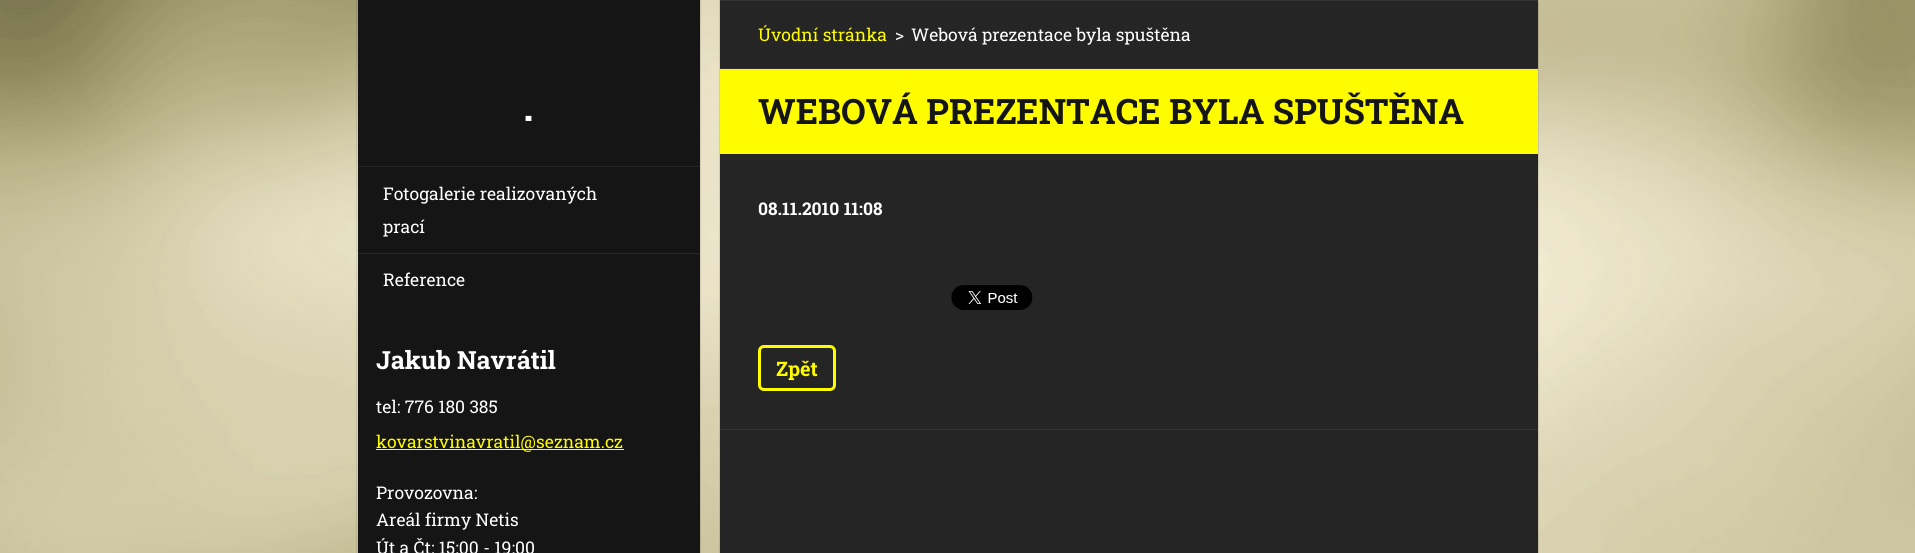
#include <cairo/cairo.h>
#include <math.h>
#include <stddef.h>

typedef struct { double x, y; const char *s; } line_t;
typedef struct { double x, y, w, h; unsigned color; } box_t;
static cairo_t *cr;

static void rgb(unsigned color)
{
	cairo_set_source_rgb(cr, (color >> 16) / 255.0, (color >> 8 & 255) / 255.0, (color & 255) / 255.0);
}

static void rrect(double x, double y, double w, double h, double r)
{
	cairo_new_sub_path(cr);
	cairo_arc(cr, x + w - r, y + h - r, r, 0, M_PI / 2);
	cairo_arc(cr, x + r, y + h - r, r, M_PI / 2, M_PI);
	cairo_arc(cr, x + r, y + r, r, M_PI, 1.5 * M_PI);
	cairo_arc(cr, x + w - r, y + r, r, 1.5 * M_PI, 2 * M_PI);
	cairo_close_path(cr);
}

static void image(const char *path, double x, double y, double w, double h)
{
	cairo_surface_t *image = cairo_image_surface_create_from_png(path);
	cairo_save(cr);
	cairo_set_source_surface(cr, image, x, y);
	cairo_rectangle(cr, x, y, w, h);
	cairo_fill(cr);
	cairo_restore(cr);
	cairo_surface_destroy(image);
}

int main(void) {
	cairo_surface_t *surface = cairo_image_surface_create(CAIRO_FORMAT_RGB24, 1915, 553);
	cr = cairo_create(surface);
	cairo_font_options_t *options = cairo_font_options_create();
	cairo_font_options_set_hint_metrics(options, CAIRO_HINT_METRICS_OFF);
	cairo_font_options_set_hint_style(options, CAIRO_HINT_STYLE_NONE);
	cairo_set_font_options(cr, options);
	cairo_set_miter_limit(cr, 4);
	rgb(0xffffff);
	cairo_paint(cr);
	image("img/1.png", 0, 0, 1915, 553);
	rgb(0x151515);
	cairo_rectangle(cr, 358, 0, 342, 553);
	cairo_fill(cr);
	cairo_rectangle(cr, 356.5, -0.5, 344, 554);
	cairo_set_source_rgba(cr, 0, 0, 0, 0.1);
	cairo_set_line_width(cr, 1);
	cairo_stroke(cr);
	{
		static const box_t items[] = {
			{358, 166, 342, 1, 0x272727},
			{358, 253, 342, 1, 0x272727},
			{376, 449, 248, 1, 0xfffc00},
			{720, 1, 818, 67, 0x252525},
			{720, 0, 818, 1, 0x353535},
		};
		for (size_t i = 0; i < sizeof items / sizeof *items; i++) {
			rgb(items[i].color);
			cairo_rectangle(cr, items[i].x, items[i].y, items[i].w, items[i].h);
			cairo_fill(cr);
		}
	}
	cairo_rectangle(cr, 719.5, -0.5, 819, 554);
	cairo_set_source_rgba(cr, 0, 0, 0, 0.1);
	cairo_stroke(cr);
	{
		static const box_t items[] = {
			{720, 68, 818, 1, 0x353535},
			{720, 69, 818, 85, 0xfffc00},
			{720, 154, 818, 275, 0x252525},
		};
		for (size_t i = 0; i < sizeof items / sizeof *items; i++) {
			rgb(items[i].color);
			cairo_rectangle(cr, items[i].x, items[i].y, items[i].w, items[i].h);
			cairo_fill(cr);
		}
	}
	image("img/2.png", 951, 285, 82, 25);
	rrect(759.5, 346.5, 75, 43, 4.5);
	rgb(0xfffc00);
	cairo_set_line_width(cr, 3);
	cairo_stroke(cr);
	rgb(0x353535);
	cairo_rectangle(cr, 720, 429, 818, 1);
	cairo_fill(cr);
	rgb(0x252525);
	cairo_rectangle(cr, 720, 430, 818, 123);
	cairo_fill(cr);
	cairo_select_font_face(cr, "Roboto Slab", CAIRO_FONT_SLANT_NORMAL, CAIRO_FONT_WEIGHT_BOLD);
	cairo_set_font_size(cr, 41);
	rgb(0xffffff);
	cairo_move_to(cr, 523, 121);
	cairo_show_text(cr, ".");
	cairo_select_font_face(cr, "Roboto Slab", CAIRO_FONT_SLANT_NORMAL, CAIRO_FONT_WEIGHT_NORMAL);
	cairo_set_font_size(cr, 17.5);
	{
		static const line_t items[] = {
			{383, 200, "Fotogalerie realizovaných"},
			{383, 233, "prací"},
			{383, 286, "Reference"},
		};
		for (size_t i = 0; i < sizeof items / sizeof *items; i++) {
			cairo_move_to(cr, items[i].x, items[i].y);
			cairo_show_text(cr, items[i].s);
		}
	}
	cairo_select_font_face(cr, "Roboto Slab", CAIRO_FONT_SLANT_NORMAL, CAIRO_FONT_WEIGHT_BOLD);
	cairo_set_font_size(cr, 25);
	cairo_move_to(cr, 376, 369);
	cairo_show_text(cr, "Jakub Navrátil");
	cairo_select_font_face(cr, "Roboto Slab", CAIRO_FONT_SLANT_NORMAL, CAIRO_FONT_WEIGHT_NORMAL);
	cairo_set_font_size(cr, 17.5);
	cairo_move_to(cr, 376, 413);
	cairo_show_text(cr, "tel: 776 180 385");
	rgb(0xfffc00);
	cairo_move_to(cr, 376, 448);
	cairo_show_text(cr, "kovarstvinavratil@seznam.cz");
	rgb(0xffffff);
	{
		static const line_t items[] = {
			{376, 499, "Provozovna:"},
			{376, 526, "Areál firmy Netis"},
			{376, 554, "Út a Čt: 15:00 - 19:00"},
		};
		for (size_t i = 0; i < sizeof items / sizeof *items; i++) {
			cairo_move_to(cr, items[i].x, items[i].y);
			cairo_show_text(cr, items[i].s);
		}
	}
	rgb(0xfffc00);
	cairo_move_to(cr, 758, 41);
	cairo_show_text(cr, "Úvodní stránka");
	rgb(0xffffff);
	cairo_move_to(cr, 895, 41);
	cairo_show_text(cr, ">");
	cairo_move_to(cr, 911, 41);
	cairo_show_text(cr, "Webová prezentace byla spuštěna");
	cairo_select_font_face(cr, "Roboto Slab", CAIRO_FONT_SLANT_NORMAL, CAIRO_FONT_WEIGHT_BOLD);
	cairo_set_font_size(cr, 35);
	rgb(0x151515);
	cairo_move_to(cr, 758, 124);
	cairo_show_text(cr, "WEBOVÁ PREZENTACE BYLA SPUŠTĚNA");
	cairo_set_font_size(cr, 17.5);
	rgb(0xffffff);
	cairo_move_to(cr, 758, 215);
	cairo_show_text(cr, "08.11.2010 11:08");
	cairo_set_font_size(cr, 20);
	rgb(0xfffc00);
	cairo_move_to(cr, 776, 376);
	cairo_show_text(cr, "Zpět");
	cairo_surface_write_to_png(surface, "page.png");
	cairo_font_options_destroy(options);
	cairo_destroy(cr);
	cairo_surface_destroy(surface);
	return 0;
}
